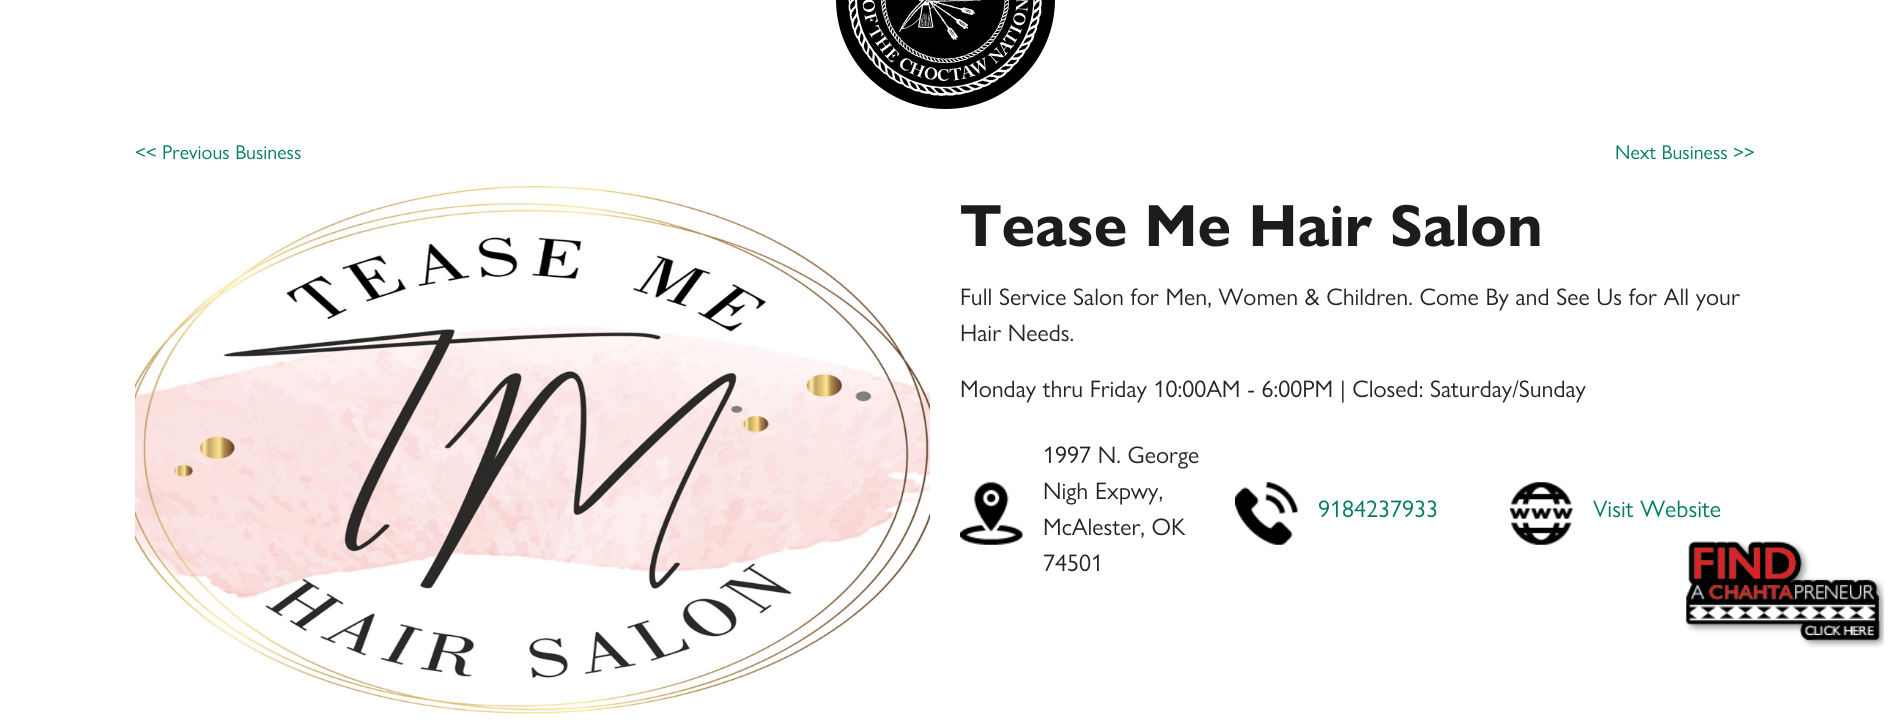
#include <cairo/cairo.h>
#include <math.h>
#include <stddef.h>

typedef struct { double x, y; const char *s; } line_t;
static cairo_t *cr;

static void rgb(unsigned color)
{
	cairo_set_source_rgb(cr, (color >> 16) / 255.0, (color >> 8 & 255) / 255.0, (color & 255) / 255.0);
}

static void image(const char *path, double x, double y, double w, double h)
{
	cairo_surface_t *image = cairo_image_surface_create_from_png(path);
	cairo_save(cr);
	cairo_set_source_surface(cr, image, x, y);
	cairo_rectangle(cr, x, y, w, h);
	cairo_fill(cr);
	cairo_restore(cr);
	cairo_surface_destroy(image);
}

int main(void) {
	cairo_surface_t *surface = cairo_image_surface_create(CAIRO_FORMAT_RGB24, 1889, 727);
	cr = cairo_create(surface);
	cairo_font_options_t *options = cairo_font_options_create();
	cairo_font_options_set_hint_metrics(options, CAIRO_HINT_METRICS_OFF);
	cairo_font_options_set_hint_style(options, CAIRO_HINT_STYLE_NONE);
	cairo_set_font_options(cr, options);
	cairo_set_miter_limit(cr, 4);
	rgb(0xffffff);
	cairo_paint(cr);
	rgb(0x000000);
	cairo_arc(cr, 945.5, -0.5, 103, 0, 2 * M_PI);
	cairo_fill_preserve(cr);
	cairo_set_line_width(cr, 13);
	cairo_stroke(cr);
	image("img/1.png", 848, 0, 194, 96);
	image("img/2.png", 135, 186, 795, 528);
	image("img/3.png", 960, 482, 63, 63);
	image("img/4.png", 1235, 482, 63, 63);
	image("img/5.png", 1510, 482, 63, 63);
	image("img/6.png", 1685, 541, 199, 107);
	cairo_select_font_face(cr, "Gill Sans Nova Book", CAIRO_FONT_SLANT_NORMAL, CAIRO_FONT_WEIGHT_NORMAL);
	cairo_set_font_size(cr, 20);
	rgb(0x007b5f);
	cairo_move_to(cr, 135, 159);
	cairo_show_text(cr, "<< Previous Business");
	cairo_move_to(cr, 1615, 159);
	cairo_show_text(cr, "Next Business >>");
	cairo_select_font_face(cr, "Gill Sans Nova Book", CAIRO_FONT_SLANT_NORMAL, CAIRO_FONT_WEIGHT_BOLD);
	cairo_set_font_size(cr, 59.75);
	rgb(0x1c1c1c);
	cairo_move_to(cr, 960, 246);
	cairo_show_text(cr, "Tease Me Hair Salon");
	cairo_select_font_face(cr, "Gill Sans Nova Book", CAIRO_FONT_SLANT_NORMAL, CAIRO_FONT_WEIGHT_NORMAL);
	cairo_set_font_size(cr, 24);
	rgb(0x212529);
	{
		static const line_t items[] = {
			{960, 305, "Full Service Salon for Men, Women & Children. Come By and See Us for All your"},
			{960, 341, "Hair Needs."},
			{960, 397, "Monday thru Friday 10:00AM - 6:00PM | Closed: Saturday/Sunday"},
			{1043, 463, "1997 N. George"},
			{1043, 499, "Nigh Expwy,"},
			{1043, 535, "McAlester, OK"},
			{1043, 571, "74501"},
		};
		for (size_t i = 0; i < sizeof items / sizeof *items; i++) {
			cairo_move_to(cr, items[i].x, items[i].y);
			cairo_show_text(cr, items[i].s);
		}
	}
	rgb(0x007b5f);
	cairo_move_to(cr, 1318, 517);
	cairo_show_text(cr, "9184237933");
	cairo_move_to(cr, 1593, 517);
	cairo_show_text(cr, "Visit Website");
	cairo_surface_write_to_png(surface, "page.png");
	cairo_font_options_destroy(options);
	cairo_destroy(cr);
	cairo_surface_destroy(surface);
	return 0;
}
